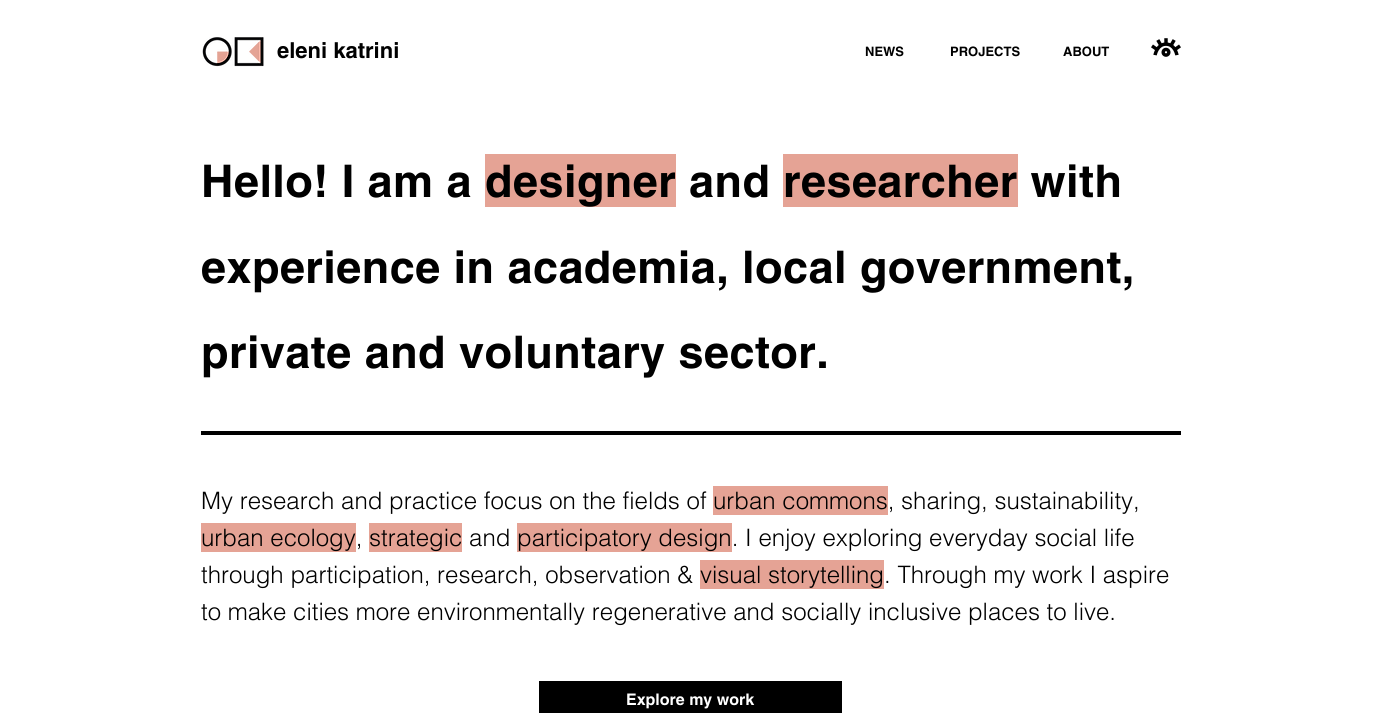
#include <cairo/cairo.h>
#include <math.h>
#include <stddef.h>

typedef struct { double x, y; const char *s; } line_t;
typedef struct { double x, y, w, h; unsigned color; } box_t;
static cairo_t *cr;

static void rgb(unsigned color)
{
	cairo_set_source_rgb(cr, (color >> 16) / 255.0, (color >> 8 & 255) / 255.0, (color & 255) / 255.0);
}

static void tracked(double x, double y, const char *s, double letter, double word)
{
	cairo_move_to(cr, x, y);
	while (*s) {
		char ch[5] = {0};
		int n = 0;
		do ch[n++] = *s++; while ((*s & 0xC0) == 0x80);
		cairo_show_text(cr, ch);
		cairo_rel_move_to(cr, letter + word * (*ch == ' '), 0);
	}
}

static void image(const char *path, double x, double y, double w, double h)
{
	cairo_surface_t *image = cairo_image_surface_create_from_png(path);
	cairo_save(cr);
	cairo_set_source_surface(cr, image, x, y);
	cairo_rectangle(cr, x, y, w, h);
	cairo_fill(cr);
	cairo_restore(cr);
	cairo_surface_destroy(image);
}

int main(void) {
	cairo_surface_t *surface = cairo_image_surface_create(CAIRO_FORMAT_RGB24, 1382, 713);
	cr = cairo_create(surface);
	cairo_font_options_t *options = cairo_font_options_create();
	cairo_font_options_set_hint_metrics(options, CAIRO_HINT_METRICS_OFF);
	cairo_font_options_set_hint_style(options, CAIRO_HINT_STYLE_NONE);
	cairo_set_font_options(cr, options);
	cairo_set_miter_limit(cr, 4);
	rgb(0xffffff);
	cairo_paint(cr);
	image("img/1.png", 202, 37, 62, 30);
	image("img/2.png", 1151, 38, 30, 19);
	{
		static const box_t items[] = {
			{485, 154, 191, 53, 0xe5a395},
			{783, 154, 235, 53, 0xe5a395},
			{201, 431, 980, 4, 0x000000},
			{713, 486, 175, 29, 0xe5a395},
			{201, 523, 155, 29, 0xe5a395},
			{369, 523, 93, 29, 0xe5a395},
			{517, 523, 215, 29, 0xe5a395},
			{700, 560, 184, 29, 0xe5a395},
			{539, 681, 303, 32, 0x000000},
		};
		for (size_t i = 0; i < sizeof items / sizeof *items; i++) {
			rgb(items[i].color);
			cairo_rectangle(cr, items[i].x, items[i].y, items[i].w, items[i].h);
			cairo_fill(cr);
		}
	}
	cairo_select_font_face(cr, "helvetica", CAIRO_FONT_SLANT_NORMAL, CAIRO_FONT_WEIGHT_BOLD);
	cairo_set_font_size(cr, 22);
	cairo_move_to(cr, 277, 58);
	cairo_show_text(cr, "eleni katrini");
	cairo_set_font_size(cr, 13);
	{
		static const line_t items[] = {
			{865, 56, "NEWS"},
			{950, 56, "PROJECTS"},
			{1063, 56, "ABOUT"},
		};
		for (size_t i = 0; i < sizeof items / sizeof *items; i++) {
			cairo_move_to(cr, items[i].x, items[i].y);
			cairo_show_text(cr, items[i].s);
		}
	}
	cairo_set_font_size(cr, 45);
	{
		static const line_t items[] = {
			{201, 197, "Hello! I am a"},
			{485, 197, "designer and"},
			{783, 197, "researcher with"},
			{201, 283, "experience in academia, local government,"},
			{201, 368, "private and voluntary sector."},
		};
		for (size_t i = 0; i < sizeof items / sizeof *items; i++) {
			tracked(items[i].x, items[i].y, items[i].s, 0.45, 0);
		}
	}
	cairo_select_font_face(cr, "helvetica Light", CAIRO_FONT_SLANT_NORMAL, CAIRO_FONT_WEIGHT_NORMAL);
	cairo_set_font_size(cr, 24);
	{
		static const line_t items[] = {
			{201, 509, "My research and practice focus on the fields of"},
			{713, 509, "urban commons, sharing, sustainability,"},
			{201, 546, "urban ecology,"},
			{369, 546, "strategic and"},
			{517, 546, "participatory design. I enjoy exploring everyday social life"},
			{201, 583, "through participation, research, observation &"},
			{700, 583, "visual storytelling. Through my work I aspire"},
			{201, 620, "to make cities more environmentally regenerative and socially inclusive places to live."},
		};
		for (size_t i = 0; i < sizeof items / sizeof *items; i++) {
			cairo_move_to(cr, items[i].x, items[i].y);
			cairo_show_text(cr, items[i].s);
		}
	}
	cairo_select_font_face(cr, "helvetica", CAIRO_FONT_SLANT_NORMAL, CAIRO_FONT_WEIGHT_BOLD);
	cairo_set_font_size(cr, 16);
	rgb(0xffffff);
	cairo_move_to(cr, 626, 705);
	cairo_show_text(cr, "Explore my work");
	cairo_surface_write_to_png(surface, "page.png");
	cairo_font_options_destroy(options);
	cairo_destroy(cr);
	cairo_surface_destroy(surface);
	return 0;
}
